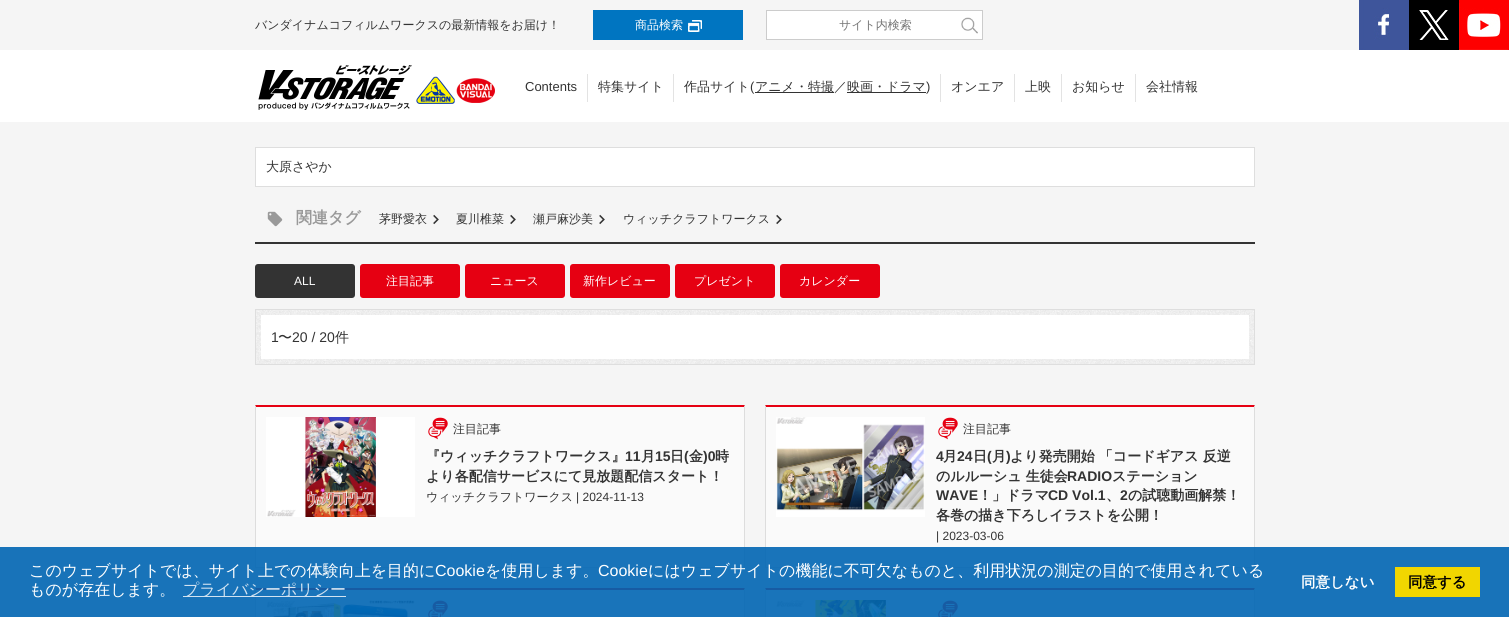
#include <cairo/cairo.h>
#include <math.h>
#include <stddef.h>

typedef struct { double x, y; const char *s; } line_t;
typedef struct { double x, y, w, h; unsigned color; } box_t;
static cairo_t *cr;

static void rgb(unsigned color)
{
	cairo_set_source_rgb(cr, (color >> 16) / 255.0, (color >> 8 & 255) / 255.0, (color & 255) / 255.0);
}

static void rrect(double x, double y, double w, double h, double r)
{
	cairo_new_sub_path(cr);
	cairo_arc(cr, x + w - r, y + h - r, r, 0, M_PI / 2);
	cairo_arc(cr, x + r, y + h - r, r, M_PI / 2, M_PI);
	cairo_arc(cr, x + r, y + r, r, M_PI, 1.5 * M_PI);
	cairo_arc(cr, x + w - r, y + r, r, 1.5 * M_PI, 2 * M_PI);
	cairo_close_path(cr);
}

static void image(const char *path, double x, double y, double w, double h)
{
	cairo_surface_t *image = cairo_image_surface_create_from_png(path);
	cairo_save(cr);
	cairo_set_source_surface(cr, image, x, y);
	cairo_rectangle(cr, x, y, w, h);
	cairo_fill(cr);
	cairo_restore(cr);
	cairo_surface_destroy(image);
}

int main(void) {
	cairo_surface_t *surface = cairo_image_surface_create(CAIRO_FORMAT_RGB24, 1509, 617);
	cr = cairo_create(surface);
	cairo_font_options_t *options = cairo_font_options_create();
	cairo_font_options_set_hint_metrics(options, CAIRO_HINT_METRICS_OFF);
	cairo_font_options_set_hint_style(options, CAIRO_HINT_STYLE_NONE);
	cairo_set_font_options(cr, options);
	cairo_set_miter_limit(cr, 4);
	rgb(0xf5f5f5);
	cairo_paint(cr);
	rgb(0xffffff);
	cairo_rectangle(cr, 0, 50, 1509, 72);
	cairo_fill(cr);
	rgb(0x0075c1);
	cairo_rectangle(cr, 593, 10, 150, 30);
	cairo_fill(cr);
	image("img/1.png", 688, 20, 14, 12);
	rgb(0xffffff);
	cairo_rectangle(cr, 767, 11, 215, 28);
	cairo_fill(cr);
	image("img/2.png", 961, 17, 17, 17);
	cairo_rectangle(cr, 766.5, 10.5, 216, 29);
	rgb(0xcccccc);
	cairo_set_line_width(cr, 1);
	cairo_stroke(cr);
	image("img/3.png", 1359, 0, 50, 50);
	image("img/4.png", 1409, 0, 50, 50);
	image("img/5.png", 1459, 0, 50, 50);
	image("img/6.png", 258, 65, 237, 45);
	{
		static const box_t items[] = {
			{587, 74, 1, 28, 0xe3e3e3},
			{673, 74, 1, 28, 0xe3e3e3},
			{755, 92, 79, 1, 0x333333},
			{847, 92, 79, 1, 0x333333},
			{940, 74, 1, 28, 0xe3e3e3},
			{1014, 74, 1, 28, 0xe3e3e3},
			{1061, 74, 1, 28, 0xe3e3e3},
			{1135, 74, 1, 28, 0xe3e3e3},
		};
		for (size_t i = 0; i < sizeof items / sizeof *items; i++) {
			rgb(items[i].color);
			cairo_rectangle(cr, items[i].x, items[i].y, items[i].w, items[i].h);
			cairo_fill(cr);
		}
	}
	rgb(0xffffff);
	cairo_rectangle(cr, 255.5, 147.5, 999, 39);
	cairo_fill_preserve(cr);
	rgb(0xdedede);
	cairo_stroke(cr);
	rgb(0x333333);
	cairo_rectangle(cr, 255, 242, 1000, 2);
	cairo_fill(cr);
	image("img/7.png", 267, 211, 16, 16);
	image("img/8.png", 433, 214, 6, 11);
	image("img/8.png", 510, 214, 6, 11);
	image("img/8.png", 599, 214, 6, 11);
	image("img/8.png", 776, 214, 6, 11);
	rrect(255, 264, 100, 34, 3);
	cairo_fill(cr);
	rgb(0xe60012);
	rrect(360, 264, 100, 34, 3);
	cairo_fill(cr);
	rrect(465, 264, 100, 34, 3);
	cairo_fill(cr);
	rrect(570, 264, 100, 34, 3);
	cairo_fill(cr);
	rrect(675, 264, 100, 34, 3);
	cairo_fill(cr);
	rrect(780, 264, 100, 34, 3);
	cairo_fill(cr);
	image("img/9.png", 256, 310, 998, 54);
	cairo_rectangle(cr, 255.5, 309.5, 999, 55);
	rgb(0xdedede);
	cairo_stroke(cr);
	rgb(0xffffff);
	cairo_rectangle(cr, 261, 315, 988, 44);
	cairo_fill(cr);
	rgb(0xfafafa);
	cairo_rectangle(cr, 256, 407, 488, 160);
	cairo_fill(cr);
	rgb(0xe60012);
	cairo_new_path(cr);
	cairo_move_to(cr, 255, 405);
	cairo_line_to(cr, 745, 405);
	cairo_line_to(cr, 744, 407);
	cairo_line_to(cr, 256, 407);
	cairo_close_path(cr);
	cairo_fill(cr);
	rgb(0xdddddd);
	cairo_new_path(cr);
	cairo_move_to(cr, 745, 405);
	cairo_line_to(cr, 745, 568);
	cairo_line_to(cr, 744, 567);
	cairo_line_to(cr, 744, 407);
	cairo_close_path(cr);
	cairo_fill(cr);
	cairo_rectangle(cr, 255, 567, 490, 1);
	cairo_fill(cr);
	cairo_new_path(cr);
	cairo_move_to(cr, 255, 568);
	cairo_line_to(cr, 255, 405);
	cairo_line_to(cr, 256, 407);
	cairo_line_to(cr, 256, 567);
	cairo_close_path(cr);
	cairo_fill(cr);
	image("img/10.png", 428, 417, 20, 23);
	image("img/11.png", 266, 417, 149, 100);
	rgb(0xfafafa);
	cairo_rectangle(cr, 766, 407, 488, 160);
	cairo_fill(cr);
	rgb(0xe60012);
	cairo_new_path(cr);
	cairo_move_to(cr, 765, 405);
	cairo_line_to(cr, 1255, 405);
	cairo_line_to(cr, 1254, 407);
	cairo_line_to(cr, 766, 407);
	cairo_close_path(cr);
	cairo_fill(cr);
	rgb(0xdddddd);
	cairo_new_path(cr);
	cairo_move_to(cr, 1255, 405);
	cairo_line_to(cr, 1255, 568);
	cairo_line_to(cr, 1254, 567);
	cairo_line_to(cr, 1254, 407);
	cairo_close_path(cr);
	cairo_fill(cr);
	cairo_rectangle(cr, 765, 567, 490, 1);
	cairo_fill(cr);
	cairo_new_path(cr);
	cairo_move_to(cr, 765, 568);
	cairo_line_to(cr, 765, 405);
	cairo_line_to(cr, 766, 407);
	cairo_line_to(cr, 766, 567);
	cairo_close_path(cr);
	cairo_fill(cr);
	image("img/10.png", 938, 417, 20, 23);
	image("img/12.png", 776, 417, 149, 100);
	rgb(0xfafafa);
	cairo_rectangle(cr, 256, 590, 488, 27);
	cairo_fill(cr);
	rgb(0xe60012);
	cairo_new_path(cr);
	cairo_move_to(cr, 255, 588);
	cairo_line_to(cr, 745, 588);
	cairo_line_to(cr, 744, 590);
	cairo_line_to(cr, 256, 590);
	cairo_close_path(cr);
	cairo_fill(cr);
	rgb(0xdddddd);
	cairo_new_path(cr);
	cairo_move_to(cr, 745, 588);
	cairo_line_to(cr, 745, 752);
	cairo_line_to(cr, 744, 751);
	cairo_line_to(cr, 744, 590);
	cairo_close_path(cr);
	cairo_fill(cr);
	cairo_new_path(cr);
	cairo_move_to(cr, 255, 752);
	cairo_line_to(cr, 255, 588);
	cairo_line_to(cr, 256, 590);
	cairo_line_to(cr, 256, 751);
	cairo_close_path(cr);
	cairo_fill(cr);
	image("img/13.png", 266, 600, 149, 17);
	image("img/14.png", 428, 600, 20, 17);
	rgb(0xfafafa);
	cairo_rectangle(cr, 766, 590, 488, 27);
	cairo_fill(cr);
	rgb(0xe60012);
	cairo_new_path(cr);
	cairo_move_to(cr, 765, 588);
	cairo_line_to(cr, 1255, 588);
	cairo_line_to(cr, 1254, 590);
	cairo_line_to(cr, 766, 590);
	cairo_close_path(cr);
	cairo_fill(cr);
	rgb(0xdddddd);
	cairo_new_path(cr);
	cairo_move_to(cr, 1255, 588);
	cairo_line_to(cr, 1255, 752);
	cairo_line_to(cr, 1254, 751);
	cairo_line_to(cr, 1254, 590);
	cairo_close_path(cr);
	cairo_fill(cr);
	cairo_new_path(cr);
	cairo_move_to(cr, 765, 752);
	cairo_line_to(cr, 765, 588);
	cairo_line_to(cr, 766, 590);
	cairo_line_to(cr, 766, 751);
	cairo_close_path(cr);
	cairo_fill(cr);
	image("img/15.png", 776, 600, 149, 17);
	image("img/14.png", 938, 600, 20, 17);
	cairo_set_source_rgba(cr, 0, 0.396, 0.702, 0.9);
	cairo_rectangle(cr, 0, 547, 1509, 70);
	cairo_fill(cr);
	cairo_set_source_rgba(cr, 1, 1, 1, 0.8);
	cairo_rectangle(cr, 183, 596, 163, 1);
	cairo_fill(cr);
	rgb(0xf1d600);
	cairo_rectangle(cr, 1395, 567, 85, 30);
	cairo_fill(cr);
	cairo_select_font_face(cr, "WenQuanYi Zen Hei Medium", CAIRO_FONT_SLANT_NORMAL, CAIRO_FONT_WEIGHT_NORMAL);
	cairo_set_font_size(cr, 12);
	rgb(0x333333);
	cairo_move_to(cr, 255, 29);
	cairo_show_text(cr, "バンダイナムコフィルムワークスの最新情報をお届け！");
	rgb(0xffffff);
	cairo_move_to(cr, 635, 29);
	cairo_show_text(cr, "商品検索");
	rgb(0x757575);
	cairo_move_to(cr, 839, 29);
	cairo_show_text(cr, "サイト内検索");
	cairo_select_font_face(cr, "Liberation Sans", CAIRO_FONT_SLANT_NORMAL, CAIRO_FONT_WEIGHT_NORMAL);
	cairo_set_font_size(cr, 13);
	rgb(0x333333);
	cairo_move_to(cr, 525, 91);
	cairo_show_text(cr, "Contents");
	cairo_select_font_face(cr, "WenQuanYi Zen Hei Medium", CAIRO_FONT_SLANT_NORMAL, CAIRO_FONT_WEIGHT_NORMAL);
	cairo_move_to(cr, 598, 91);
	cairo_show_text(cr, "特集サイト");
	cairo_move_to(cr, 684, 91);
	cairo_show_text(cr, "作品サイト");
	cairo_select_font_face(cr, "Liberation Sans", CAIRO_FONT_SLANT_NORMAL, CAIRO_FONT_WEIGHT_NORMAL);
	cairo_move_to(cr, 750, 91);
	cairo_show_text(cr, "(");
	cairo_select_font_face(cr, "WenQuanYi Zen Hei Medium", CAIRO_FONT_SLANT_NORMAL, CAIRO_FONT_WEIGHT_NORMAL);
	cairo_move_to(cr, 755, 91);
	cairo_show_text(cr, "アニメ・特撮／");
	cairo_move_to(cr, 847, 91);
	cairo_show_text(cr, "映画・ドラマ");
	cairo_select_font_face(cr, "Liberation Sans", CAIRO_FONT_SLANT_NORMAL, CAIRO_FONT_WEIGHT_NORMAL);
	cairo_move_to(cr, 926, 91);
	cairo_show_text(cr, ")");
	cairo_select_font_face(cr, "WenQuanYi Zen Hei Medium", CAIRO_FONT_SLANT_NORMAL, CAIRO_FONT_WEIGHT_NORMAL);
	{
		static const line_t items[] = {
			{951, 91, "オンエア"},
			{1025, 91, "上映"},
			{1072, 91, "お知らせ"},
			{1146, 91, "会社情報"},
			{266, 171, "大原さやか"},
		};
		for (size_t i = 0; i < sizeof items / sizeof *items; i++) {
			cairo_move_to(cr, items[i].x, items[i].y);
			cairo_show_text(cr, items[i].s);
		}
	}
	cairo_select_font_face(cr, "WenQuanYi Zen Hei", CAIRO_FONT_SLANT_NORMAL, CAIRO_FONT_WEIGHT_BOLD);
	cairo_set_font_size(cr, 16);
	rgb(0x999999);
	cairo_move_to(cr, 296, 223);
	cairo_show_text(cr, "関連タグ");
	cairo_select_font_face(cr, "WenQuanYi Zen Hei Medium", CAIRO_FONT_SLANT_NORMAL, CAIRO_FONT_WEIGHT_NORMAL);
	cairo_set_font_size(cr, 12);
	rgb(0x333333);
	{
		static const line_t items[] = {
			{379, 223, "茅野愛衣"},
			{456, 223, "夏川椎菜"},
			{533, 223, "瀬戸麻沙美"},
			{623, 223, "ウィッチクラフトワークス"},
		};
		for (size_t i = 0; i < sizeof items / sizeof *items; i++) {
			cairo_move_to(cr, items[i].x, items[i].y);
			cairo_show_text(cr, items[i].s);
		}
	}
	cairo_select_font_face(cr, "Liberation Sans", CAIRO_FONT_SLANT_NORMAL, CAIRO_FONT_WEIGHT_NORMAL);
	rgb(0xffffff);
	cairo_move_to(cr, 294, 285);
	cairo_show_text(cr, "ALL");
	cairo_select_font_face(cr, "WenQuanYi Zen Hei Medium", CAIRO_FONT_SLANT_NORMAL, CAIRO_FONT_WEIGHT_NORMAL);
	{
		static const line_t items[] = {
			{386, 285, "注目記事"},
			{490, 285, "ニュース"},
			{583, 285, "新作レビュー"},
			{694, 285, "プレゼント"},
			{799, 285, "カレンダー"},
		};
		for (size_t i = 0; i < sizeof items / sizeof *items; i++) {
			cairo_move_to(cr, items[i].x, items[i].y);
			cairo_show_text(cr, items[i].s);
		}
	}
	cairo_select_font_face(cr, "Liberation Sans", CAIRO_FONT_SLANT_NORMAL, CAIRO_FONT_WEIGHT_NORMAL);
	cairo_set_font_size(cr, 14);
	rgb(0x333333);
	cairo_move_to(cr, 271, 342);
	cairo_show_text(cr, "1");
	cairo_select_font_face(cr, "WenQuanYi Zen Hei Medium", CAIRO_FONT_SLANT_NORMAL, CAIRO_FONT_WEIGHT_NORMAL);
	cairo_move_to(cr, 278, 342);
	cairo_show_text(cr, "〜");
	cairo_select_font_face(cr, "Liberation Sans", CAIRO_FONT_SLANT_NORMAL, CAIRO_FONT_WEIGHT_NORMAL);
	cairo_move_to(cr, 292, 342);
	cairo_show_text(cr, "20 / 20");
	cairo_select_font_face(cr, "WenQuanYi Zen Hei Medium", CAIRO_FONT_SLANT_NORMAL, CAIRO_FONT_WEIGHT_NORMAL);
	cairo_move_to(cr, 335, 342);
	cairo_show_text(cr, "件");
	cairo_set_font_size(cr, 12);
	cairo_move_to(cr, 453, 433);
	cairo_show_text(cr, "注目記事");
	cairo_select_font_face(cr, "WenQuanYi Zen Hei", CAIRO_FONT_SLANT_NORMAL, CAIRO_FONT_WEIGHT_BOLD);
	cairo_set_font_size(cr, 14);
	cairo_move_to(cr, 426, 461);
	cairo_show_text(cr, "『ウィッチクラフトワークス』");
	cairo_select_font_face(cr, "Liberation Sans", CAIRO_FONT_SLANT_NORMAL, CAIRO_FONT_WEIGHT_BOLD);
	cairo_move_to(cr, 625, 461);
	cairo_show_text(cr, "11");
	cairo_select_font_face(cr, "WenQuanYi Zen Hei", CAIRO_FONT_SLANT_NORMAL, CAIRO_FONT_WEIGHT_BOLD);
	cairo_move_to(cr, 641, 461);
	cairo_show_text(cr, "月");
	cairo_select_font_face(cr, "Liberation Sans", CAIRO_FONT_SLANT_NORMAL, CAIRO_FONT_WEIGHT_BOLD);
	cairo_move_to(cr, 655, 461);
	cairo_show_text(cr, "15");
	cairo_select_font_face(cr, "WenQuanYi Zen Hei", CAIRO_FONT_SLANT_NORMAL, CAIRO_FONT_WEIGHT_BOLD);
	cairo_move_to(cr, 670, 461);
	cairo_show_text(cr, "日");
	cairo_select_font_face(cr, "Liberation Sans", CAIRO_FONT_SLANT_NORMAL, CAIRO_FONT_WEIGHT_BOLD);
	cairo_move_to(cr, 684, 461);
	cairo_show_text(cr, "(");
	cairo_select_font_face(cr, "WenQuanYi Zen Hei", CAIRO_FONT_SLANT_NORMAL, CAIRO_FONT_WEIGHT_BOLD);
	cairo_move_to(cr, 689, 461);
	cairo_show_text(cr, "金");
	cairo_select_font_face(cr, "Liberation Sans", CAIRO_FONT_SLANT_NORMAL, CAIRO_FONT_WEIGHT_BOLD);
	cairo_move_to(cr, 703, 461);
	cairo_show_text(cr, ")0");
	cairo_select_font_face(cr, "WenQuanYi Zen Hei", CAIRO_FONT_SLANT_NORMAL, CAIRO_FONT_WEIGHT_BOLD);
	cairo_move_to(cr, 715, 461);
	cairo_show_text(cr, "時");
	cairo_move_to(cr, 426, 481);
	cairo_show_text(cr, "より各配信サービスにて見放題配信スタート！");
	cairo_select_font_face(cr, "WenQuanYi Zen Hei Medium", CAIRO_FONT_SLANT_NORMAL, CAIRO_FONT_WEIGHT_NORMAL);
	cairo_set_font_size(cr, 12);
	cairo_move_to(cr, 426, 501);
	cairo_show_text(cr, "ウィッチクラフトワークス");
	cairo_select_font_face(cr, "Liberation Sans", CAIRO_FONT_SLANT_NORMAL, CAIRO_FONT_WEIGHT_NORMAL);
	cairo_move_to(cr, 576, 501);
	cairo_show_text(cr, "| 2024-11-13");
	cairo_select_font_face(cr, "WenQuanYi Zen Hei Medium", CAIRO_FONT_SLANT_NORMAL, CAIRO_FONT_WEIGHT_NORMAL);
	cairo_move_to(cr, 963, 433);
	cairo_show_text(cr, "注目記事");
	cairo_select_font_face(cr, "Liberation Sans", CAIRO_FONT_SLANT_NORMAL, CAIRO_FONT_WEIGHT_BOLD);
	cairo_set_font_size(cr, 14);
	cairo_move_to(cr, 936, 461);
	cairo_show_text(cr, "4");
	cairo_select_font_face(cr, "WenQuanYi Zen Hei", CAIRO_FONT_SLANT_NORMAL, CAIRO_FONT_WEIGHT_BOLD);
	cairo_move_to(cr, 943, 461);
	cairo_show_text(cr, "月");
	cairo_select_font_face(cr, "Liberation Sans", CAIRO_FONT_SLANT_NORMAL, CAIRO_FONT_WEIGHT_BOLD);
	cairo_move_to(cr, 957, 461);
	cairo_show_text(cr, "24");
	cairo_select_font_face(cr, "WenQuanYi Zen Hei", CAIRO_FONT_SLANT_NORMAL, CAIRO_FONT_WEIGHT_BOLD);
	cairo_move_to(cr, 973, 461);
	cairo_show_text(cr, "日");
	cairo_select_font_face(cr, "Liberation Sans", CAIRO_FONT_SLANT_NORMAL, CAIRO_FONT_WEIGHT_BOLD);
	cairo_move_to(cr, 987, 461);
	cairo_show_text(cr, "(");
	cairo_select_font_face(cr, "WenQuanYi Zen Hei", CAIRO_FONT_SLANT_NORMAL, CAIRO_FONT_WEIGHT_BOLD);
	cairo_move_to(cr, 992, 461);
	cairo_show_text(cr, "月");
	cairo_select_font_face(cr, "Liberation Sans", CAIRO_FONT_SLANT_NORMAL, CAIRO_FONT_WEIGHT_BOLD);
	cairo_move_to(cr, 1006, 461);
	cairo_show_text(cr, ")");
	cairo_select_font_face(cr, "WenQuanYi Zen Hei", CAIRO_FONT_SLANT_NORMAL, CAIRO_FONT_WEIGHT_BOLD);
	cairo_move_to(cr, 1010, 461);
	cairo_show_text(cr, "より発売開始 「コードギアス 反逆");
	cairo_move_to(cr, 936, 481);
	cairo_show_text(cr, "のルルーシュ 生徒会");
	cairo_select_font_face(cr, "Liberation Sans", CAIRO_FONT_SLANT_NORMAL, CAIRO_FONT_WEIGHT_BOLD);
	cairo_move_to(cr, 1067, 481);
	cairo_show_text(cr, "RADIO");
	cairo_select_font_face(cr, "WenQuanYi Zen Hei", CAIRO_FONT_SLANT_NORMAL, CAIRO_FONT_WEIGHT_BOLD);
	cairo_move_to(cr, 1112, 481);
	cairo_show_text(cr, "ステーション");
	cairo_select_font_face(cr, "Liberation Sans", CAIRO_FONT_SLANT_NORMAL, CAIRO_FONT_WEIGHT_BOLD);
	cairo_move_to(cr, 936, 500);
	cairo_show_text(cr, "WAVE");
	cairo_select_font_face(cr, "WenQuanYi Zen Hei", CAIRO_FONT_SLANT_NORMAL, CAIRO_FONT_WEIGHT_BOLD);
	cairo_move_to(cr, 978, 500);
	cairo_show_text(cr, "！」ドラマ");
	cairo_select_font_face(cr, "Liberation Sans", CAIRO_FONT_SLANT_NORMAL, CAIRO_FONT_WEIGHT_BOLD);
	cairo_move_to(cr, 1048, 500);
	cairo_show_text(cr, "CD Vol.1");
	cairo_select_font_face(cr, "WenQuanYi Zen Hei", CAIRO_FONT_SLANT_NORMAL, CAIRO_FONT_WEIGHT_BOLD);
	cairo_move_to(cr, 1106, 500);
	cairo_show_text(cr, "、");
	cairo_select_font_face(cr, "Liberation Sans", CAIRO_FONT_SLANT_NORMAL, CAIRO_FONT_WEIGHT_BOLD);
	cairo_move_to(cr, 1120, 500);
	cairo_show_text(cr, "2");
	cairo_select_font_face(cr, "WenQuanYi Zen Hei", CAIRO_FONT_SLANT_NORMAL, CAIRO_FONT_WEIGHT_BOLD);
	cairo_move_to(cr, 1128, 500);
	cairo_show_text(cr, "の試聴動画解禁！");
	cairo_move_to(cr, 936, 520);
	cairo_show_text(cr, "各巻の描き下ろしイラストを公開！");
	cairo_select_font_face(cr, "Liberation Sans", CAIRO_FONT_SLANT_NORMAL, CAIRO_FONT_WEIGHT_NORMAL);
	cairo_set_font_size(cr, 12);
	cairo_move_to(cr, 936, 540);
	cairo_show_text(cr, "| 2023-03-06");
	cairo_select_font_face(cr, "WenQuanYi Zen Hei Medium", CAIRO_FONT_SLANT_NORMAL, CAIRO_FONT_WEIGHT_NORMAL);
	cairo_set_font_size(cr, 16);
	rgb(0xffffff);
	cairo_move_to(cr, 29, 576);
	cairo_show_text(cr, "このウェブサイトでは、サイト上での体験向上を目的に");
	cairo_select_font_face(cr, "Liberation Sans", CAIRO_FONT_SLANT_NORMAL, CAIRO_FONT_WEIGHT_NORMAL);
	cairo_move_to(cr, 435, 576);
	cairo_show_text(cr, "Cookie");
	cairo_select_font_face(cr, "WenQuanYi Zen Hei Medium", CAIRO_FONT_SLANT_NORMAL, CAIRO_FONT_WEIGHT_NORMAL);
	cairo_move_to(cr, 485, 576);
	cairo_show_text(cr, "を使用します。");
	cairo_select_font_face(cr, "Liberation Sans", CAIRO_FONT_SLANT_NORMAL, CAIRO_FONT_WEIGHT_NORMAL);
	cairo_move_to(cr, 598, 576);
	cairo_show_text(cr, "Cookie");
	cairo_select_font_face(cr, "WenQuanYi Zen Hei Medium", CAIRO_FONT_SLANT_NORMAL, CAIRO_FONT_WEIGHT_NORMAL);
	cairo_move_to(cr, 648, 576);
	cairo_show_text(cr, "にはウェブサイトの機能に不可欠なものと、利用状況の測定の目的で使用されている");
	cairo_move_to(cr, 29, 595);
	cairo_show_text(cr, "ものが存在します。");
	rgb(0xd2e3f1);
	cairo_move_to(cr, 183, 595);
	cairo_show_text(cr, "プライバシーポリシー");
	cairo_select_font_face(cr, "WenQuanYi Zen Hei", CAIRO_FONT_SLANT_NORMAL, CAIRO_FONT_WEIGHT_BOLD);
	cairo_set_font_size(cr, 14.5);
	rgb(0xffffff);
	cairo_move_to(cr, 1301, 587);
	cairo_show_text(cr, "同意しない");
	rgb(0x000000);
	cairo_move_to(cr, 1408, 587);
	cairo_show_text(cr, "同意する");
	cairo_surface_write_to_png(surface, "page.png");
	cairo_font_options_destroy(options);
	cairo_destroy(cr);
	cairo_surface_destroy(surface);
	return 0;
}
